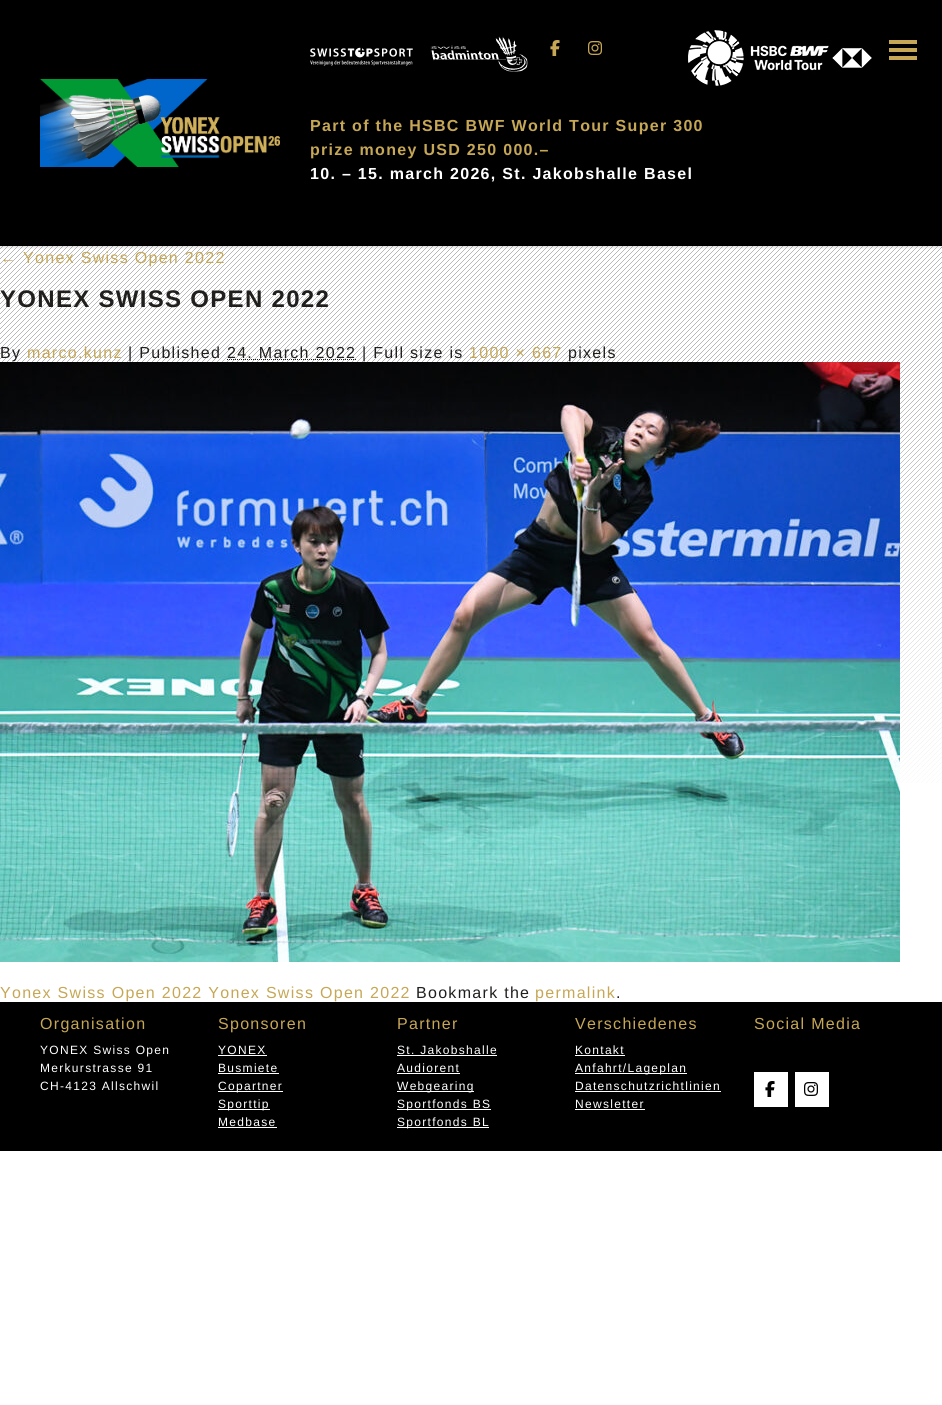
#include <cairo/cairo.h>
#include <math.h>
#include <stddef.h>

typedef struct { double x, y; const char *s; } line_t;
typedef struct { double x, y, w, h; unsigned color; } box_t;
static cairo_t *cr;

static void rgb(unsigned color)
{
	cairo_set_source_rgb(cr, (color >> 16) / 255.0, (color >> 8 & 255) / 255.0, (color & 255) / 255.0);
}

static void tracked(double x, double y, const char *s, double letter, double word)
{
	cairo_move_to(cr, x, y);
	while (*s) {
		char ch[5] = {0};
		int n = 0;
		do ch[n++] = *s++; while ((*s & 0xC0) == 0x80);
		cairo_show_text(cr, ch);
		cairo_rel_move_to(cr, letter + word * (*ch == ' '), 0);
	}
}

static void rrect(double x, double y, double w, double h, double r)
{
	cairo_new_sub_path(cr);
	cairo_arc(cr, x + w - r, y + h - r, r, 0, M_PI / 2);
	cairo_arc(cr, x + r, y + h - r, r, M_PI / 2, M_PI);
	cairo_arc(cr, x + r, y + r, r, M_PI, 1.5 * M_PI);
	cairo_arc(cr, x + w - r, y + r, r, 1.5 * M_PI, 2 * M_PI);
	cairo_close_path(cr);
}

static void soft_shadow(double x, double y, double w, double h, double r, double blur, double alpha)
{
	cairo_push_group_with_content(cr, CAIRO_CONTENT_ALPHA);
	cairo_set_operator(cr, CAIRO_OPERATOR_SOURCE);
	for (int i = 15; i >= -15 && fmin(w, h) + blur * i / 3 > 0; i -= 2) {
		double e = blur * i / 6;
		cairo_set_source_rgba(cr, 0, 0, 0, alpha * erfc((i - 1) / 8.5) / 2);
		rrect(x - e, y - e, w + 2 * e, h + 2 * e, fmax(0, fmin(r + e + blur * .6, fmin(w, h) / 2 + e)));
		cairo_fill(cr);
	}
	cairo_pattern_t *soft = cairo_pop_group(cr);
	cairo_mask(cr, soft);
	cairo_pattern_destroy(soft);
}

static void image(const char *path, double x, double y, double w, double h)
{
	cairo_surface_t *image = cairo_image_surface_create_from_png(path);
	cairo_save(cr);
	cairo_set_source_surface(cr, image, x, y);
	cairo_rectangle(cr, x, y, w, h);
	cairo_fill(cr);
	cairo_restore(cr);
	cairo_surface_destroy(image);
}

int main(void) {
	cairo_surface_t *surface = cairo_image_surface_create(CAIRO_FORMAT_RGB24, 942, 1405);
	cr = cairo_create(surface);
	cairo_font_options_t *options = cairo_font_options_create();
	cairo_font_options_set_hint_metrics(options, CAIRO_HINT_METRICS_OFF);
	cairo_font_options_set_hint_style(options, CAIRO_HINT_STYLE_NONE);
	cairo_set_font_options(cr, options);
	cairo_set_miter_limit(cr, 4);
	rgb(0xffffff);
	cairo_paint(cr);
	image("img/1.png", 0, 246, 942, 537);
	rgb(0x000000);
	soft_shadow(0, 1, 942, 246, 0, 1.5, 0.16);
	{
		static const box_t items[] = {
			{0, 0, 942, 246, 0x000000},
			{889, 40, 28, 4, 0xc6a756},
			{889, 48, 28, 4, 0xc6a756},
			{889, 56, 28, 4, 0xc6a756},
		};
		for (size_t i = 0; i < sizeof items / sizeof *items; i++) {
			rgb(items[i].color);
			cairo_rectangle(cr, items[i].x, items[i].y, items[i].w, items[i].h);
			cairo_fill(cr);
		}
	}
	image("img/2.png", 40, 79, 240, 88);
	image("img/3.png", 310, 47, 103, 19);
	image("img/4.png", 430, 36, 98, 36);
	image("img/5.png", 550, 40, 10, 16);
	image("img/6.png", 588, 41, 14, 14);
	image("img/7.png", 688, 30, 184, 56);
	cairo_new_path(cr);
	cairo_move_to(cr, 227, 359.5);
	cairo_line_to(cr, 356, 359.5);
	rgb(0x201f1d);
	cairo_set_line_width(cr, 1);
	cairo_set_dash(cr, (double[]){1, 1}, 2, 0);
	cairo_stroke(cr);
	image("img/8.png", 0, 362, 900, 600);
	{
		static const box_t items[] = {
			{0, 1002, 942, 149, 0x000000},
			{218, 1055, 49, 1, 0xffffff},
			{218, 1073, 61, 1, 0xffffff},
			{218, 1091, 65, 1, 0xffffff},
			{218, 1109, 52, 1, 0xffffff},
			{218, 1127, 59, 1, 0xffffff},
			{397, 1055, 100, 1, 0xffffff},
			{397, 1073, 63, 1, 0xffffff},
			{397, 1091, 77, 1, 0xffffff},
			{397, 1109, 94, 1, 0xffffff},
			{397, 1127, 92, 1, 0xffffff},
			{575, 1055, 50, 1, 0xffffff},
			{575, 1073, 112, 1, 0xffffff},
			{575, 1091, 146, 1, 0xffffff},
			{575, 1109, 70, 1, 0xffffff},
			{754, 1072, 34, 35, 0xffffff},
		};
		for (size_t i = 0; i < sizeof items / sizeof *items; i++) {
			rgb(items[i].color);
			cairo_rectangle(cr, items[i].x, items[i].y, items[i].w, items[i].h);
			cairo_fill(cr);
		}
	}
	image("img/9.png", 765, 1081, 10, 16);
	cairo_rectangle(cr, 795, 1072, 34, 35);
	cairo_fill(cr);
	image("img/10.png", 804, 1082, 14, 14);
	cairo_select_font_face(cr, "Liberation Sans", CAIRO_FONT_SLANT_NORMAL, CAIRO_FONT_WEIGHT_BOLD);
	cairo_set_font_size(cr, 16);
	rgb(0xc6a756);
	tracked(310, 131, "Part of the HSBC BWF World Tour Super 300", 1.3, 0);
	tracked(310, 155, "prize money USD 250 000.–", 1.3, 0);
	rgb(0xffffff);
	tracked(310, 179, "10. – 15. march 2026, St. Jakobshalle Basel", 1.3, 0);
	cairo_select_font_face(cr, "Liberation Sans", CAIRO_FONT_SLANT_NORMAL, CAIRO_FONT_WEIGHT_NORMAL);
	rgb(0xc6a756);
	tracked(0, 263, "← Yonex Swiss Open 2022", 1.3, 0);
	cairo_select_font_face(cr, "Liberation Sans", CAIRO_FONT_SLANT_NORMAL, CAIRO_FONT_WEIGHT_BOLD);
	cairo_set_font_size(cr, 24);
	rgb(0x201f1d);
	tracked(0, 307, "YONEX SWISS OPEN 2022", 1.3, 0);
	cairo_select_font_face(cr, "Liberation Sans", CAIRO_FONT_SLANT_NORMAL, CAIRO_FONT_WEIGHT_NORMAL);
	cairo_set_font_size(cr, 16);
	tracked(0, 358, "By", 1.3, 0);
	rgb(0xc6a756);
	tracked(27, 358, "marco.kunz", 1.3, 0);
	rgb(0x201f1d);
	tracked(128, 358, "| Published 24. March 2022 | Full size is", 1.3, 0);
	rgb(0xc6a756);
	tracked(469, 358, "1000 × 667", 1.3, 0);
	rgb(0x201f1d);
	tracked(568, 358, "pixels", 1.3, 0);
	rgb(0xc6a756);
	tracked(0, 998, "Yonex Swiss Open 2022 Yonex Swiss Open 2022", 1.3, 0);
	rgb(0x201f1d);
	tracked(416, 998, "Bookmark the", 1.3, 0);
	rgb(0xc6a756);
	tracked(535, 998, "permalink", 1.3, 0);
	rgb(0x201f1d);
	tracked(616, 998, ".", 1.3, 0);
	rgb(0xc6a756);
	tracked(40, 1029, "Organisation", 1.3, 0);
	cairo_set_font_size(cr, 12);
	rgb(0xffffff);
	{
		static const line_t items[] = {
			{40, 1054, "YONEX Swiss Open"},
			{40, 1072, "Merkurstrasse 91"},
			{40, 1090, "CH-4123 Allschwil"},
		};
		for (size_t i = 0; i < sizeof items / sizeof *items; i++) {
			tracked(items[i].x, items[i].y, items[i].s, 1.3, 0);
		}
	}
	cairo_set_font_size(cr, 16);
	rgb(0xc6a756);
	tracked(218, 1029, "Sponsoren", 1.3, 0);
	cairo_set_font_size(cr, 12);
	rgb(0xffffff);
	{
		static const line_t items[] = {
			{218, 1054, "YONEX"},
			{218, 1072, "Busmiete"},
			{218, 1090, "Copartner"},
			{218, 1108, "Sporttip"},
			{218, 1126, "Medbase"},
		};
		for (size_t i = 0; i < sizeof items / sizeof *items; i++) {
			tracked(items[i].x, items[i].y, items[i].s, 1.3, 0);
		}
	}
	cairo_set_font_size(cr, 16);
	rgb(0xc6a756);
	tracked(397, 1029, "Partner", 1.3, 0);
	cairo_set_font_size(cr, 12);
	rgb(0xffffff);
	{
		static const line_t items[] = {
			{397, 1054, "St. Jakobshalle"},
			{397, 1072, "Audiorent"},
			{397, 1090, "Webgearing"},
			{397, 1108, "Sportfonds BS"},
			{397, 1126, "Sportfonds BL"},
		};
		for (size_t i = 0; i < sizeof items / sizeof *items; i++) {
			tracked(items[i].x, items[i].y, items[i].s, 1.3, 0);
		}
	}
	cairo_set_font_size(cr, 16);
	rgb(0xc6a756);
	tracked(575, 1029, "Verschiedenes", 1.3, 0);
	cairo_set_font_size(cr, 12);
	rgb(0xffffff);
	{
		static const line_t items[] = {
			{575, 1054, "Kontakt"},
			{575, 1072, "Anfahrt/Lageplan"},
			{575, 1090, "Datenschutzrichtlinien"},
			{575, 1108, "Newsletter"},
		};
		for (size_t i = 0; i < sizeof items / sizeof *items; i++) {
			tracked(items[i].x, items[i].y, items[i].s, 1.3, 0);
		}
	}
	cairo_set_font_size(cr, 16);
	rgb(0xc6a756);
	tracked(754, 1029, "Social Media", 1.3, 0);
	cairo_surface_write_to_png(surface, "page.png");
	cairo_font_options_destroy(options);
	cairo_destroy(cr);
	cairo_surface_destroy(surface);
	return 0;
}
